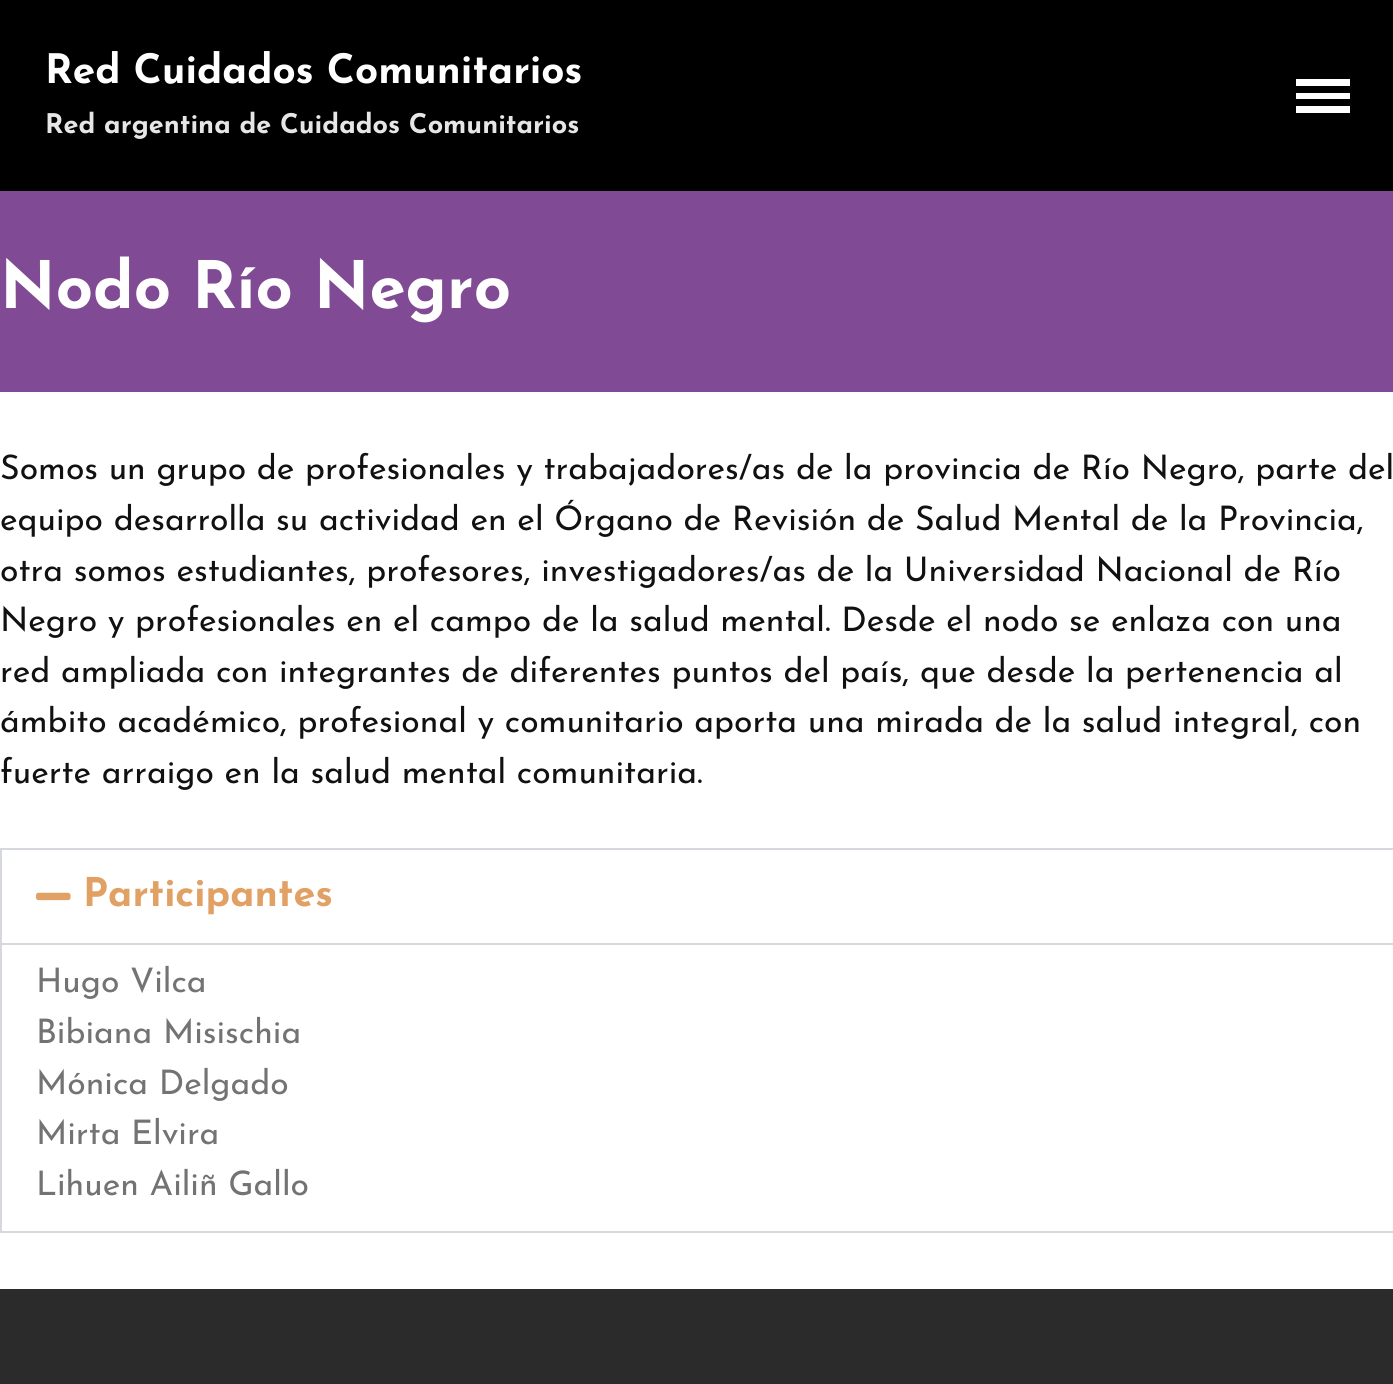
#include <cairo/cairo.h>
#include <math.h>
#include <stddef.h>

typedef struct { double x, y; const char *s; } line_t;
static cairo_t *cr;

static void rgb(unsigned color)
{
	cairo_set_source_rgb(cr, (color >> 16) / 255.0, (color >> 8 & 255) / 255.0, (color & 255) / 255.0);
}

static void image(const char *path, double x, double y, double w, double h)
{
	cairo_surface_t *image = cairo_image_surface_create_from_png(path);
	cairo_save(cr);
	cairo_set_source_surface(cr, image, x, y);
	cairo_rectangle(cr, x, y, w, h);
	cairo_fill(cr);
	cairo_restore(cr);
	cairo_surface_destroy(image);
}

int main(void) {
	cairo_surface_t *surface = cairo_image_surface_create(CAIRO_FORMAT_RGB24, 1393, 1384);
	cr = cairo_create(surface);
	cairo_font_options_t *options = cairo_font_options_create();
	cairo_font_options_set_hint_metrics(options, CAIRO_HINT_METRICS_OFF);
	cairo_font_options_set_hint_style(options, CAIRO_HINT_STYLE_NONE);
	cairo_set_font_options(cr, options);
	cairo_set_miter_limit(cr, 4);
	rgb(0xffffff);
	cairo_paint(cr);
	rgb(0x000000);
	cairo_rectangle(cr, 0, 0, 1393, 191);
	cairo_fill(cr);
	rgb(0xffffff);
	cairo_new_path(cr);
	cairo_move_to(cr, 1296, 79);
	cairo_line_to(cr, 1296, 86);
	cairo_line_to(cr, 1350, 86);
	cairo_line_to(cr, 1350, 79);
	cairo_close_path(cr);
	cairo_move_to(cr, 1296, 93);
	cairo_line_to(cr, 1296, 99);
	cairo_line_to(cr, 1350, 99);
	cairo_line_to(cr, 1350, 93);
	cairo_close_path(cr);
	cairo_move_to(cr, 1296, 106);
	cairo_line_to(cr, 1296, 113);
	cairo_line_to(cr, 1350, 113);
	cairo_line_to(cr, 1350, 106);
	cairo_close_path(cr);
	cairo_fill(cr);
	rgb(0x804b94);
	cairo_rectangle(cr, 0, 191, 1393, 201);
	cairo_fill(cr);
	cairo_rectangle(cr, 1, 849, 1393, 383);
	rgb(0xd5d8dc);
	cairo_stroke(cr);
	image("img/1.png", 36, 892, 35, 9);
	cairo_rectangle(cr, 2, 943, 1391, 2);
	cairo_fill(cr);
	rgb(0x2b2b2b);
	cairo_rectangle(cr, 0, 1289, 1393, 95);
	cairo_fill(cr);
	cairo_select_font_face(cr, "Josefin Sans", CAIRO_FONT_SLANT_NORMAL, CAIRO_FONT_WEIGHT_BOLD);
	cairo_set_font_size(cr, 40.5);
	rgb(0xffffff);
	cairo_move_to(cr, 45, 83);
	cairo_show_text(cr, "Red Cuidados Comunitarios");
	cairo_set_font_size(cr, 27);
	rgb(0xe6e6e6);
	cairo_move_to(cr, 45, 133);
	cairo_show_text(cr, "Red argentina de Cuidados Comunitarios");
	cairo_set_font_size(cr, 65.25);
	rgb(0xffffff);
	cairo_move_to(cr, 0, 308);
	cairo_show_text(cr, "Nodo Río Negro");
	cairo_select_font_face(cr, "Josefin Sans", CAIRO_FONT_SLANT_NORMAL, CAIRO_FONT_WEIGHT_NORMAL);
	cairo_set_font_size(cr, 33.75);
	rgb(0x111111);
	{
		static const line_t items[] = {
			{0, 479, "Somos un grupo de profesionales y trabajadores/as de la provincia de Río Negro, parte del"},
			{0, 530, "equipo desarrolla su actividad en el Órgano de Revisión de Salud Mental de la Provincia,"},
			{0, 581, "otra somos estudiantes, profesores, investigadores/as de la Universidad Nacional de Río"},
			{0, 631, "Negro y profesionales en el campo de la salud mental. Desde el nodo se enlaza con una"},
			{0, 682, "red ampliada con integrantes de diferentes puntos del país, que desde la pertenencia al"},
			{0, 732, "ámbito académico, profesional y comunitario aporta una mirada de la salud integral, con"},
			{0, 783, "fuerte arraigo en la salud mental comunitaria."},
		};
		for (size_t i = 0; i < sizeof items / sizeof *items; i++) {
			cairo_move_to(cr, items[i].x, items[i].y);
			cairo_show_text(cr, items[i].s);
		}
	}
	cairo_select_font_face(cr, "Josefin Sans", CAIRO_FONT_SLANT_NORMAL, CAIRO_FONT_WEIGHT_BOLD);
	cairo_set_font_size(cr, 39.5);
	rgb(0xe1a165);
	cairo_move_to(cr, 83, 906);
	cairo_show_text(cr, "Participantes");
	cairo_select_font_face(cr, "Josefin Sans", CAIRO_FONT_SLANT_NORMAL, CAIRO_FONT_WEIGHT_NORMAL);
	cairo_set_font_size(cr, 33.75);
	rgb(0x737373);
	{
		static const line_t items[] = {
			{36, 992, "Hugo Vilca"},
			{36, 1043, "Bibiana Misischia"},
			{36, 1094, "Mónica Delgado"},
			{36, 1144, "Mirta Elvira"},
			{36, 1195, "Lihuen Ailiñ Gallo"},
		};
		for (size_t i = 0; i < sizeof items / sizeof *items; i++) {
			cairo_move_to(cr, items[i].x, items[i].y);
			cairo_show_text(cr, items[i].s);
		}
	}
	cairo_surface_write_to_png(surface, "page.png");
	cairo_font_options_destroy(options);
	cairo_destroy(cr);
	cairo_surface_destroy(surface);
	return 0;
}
